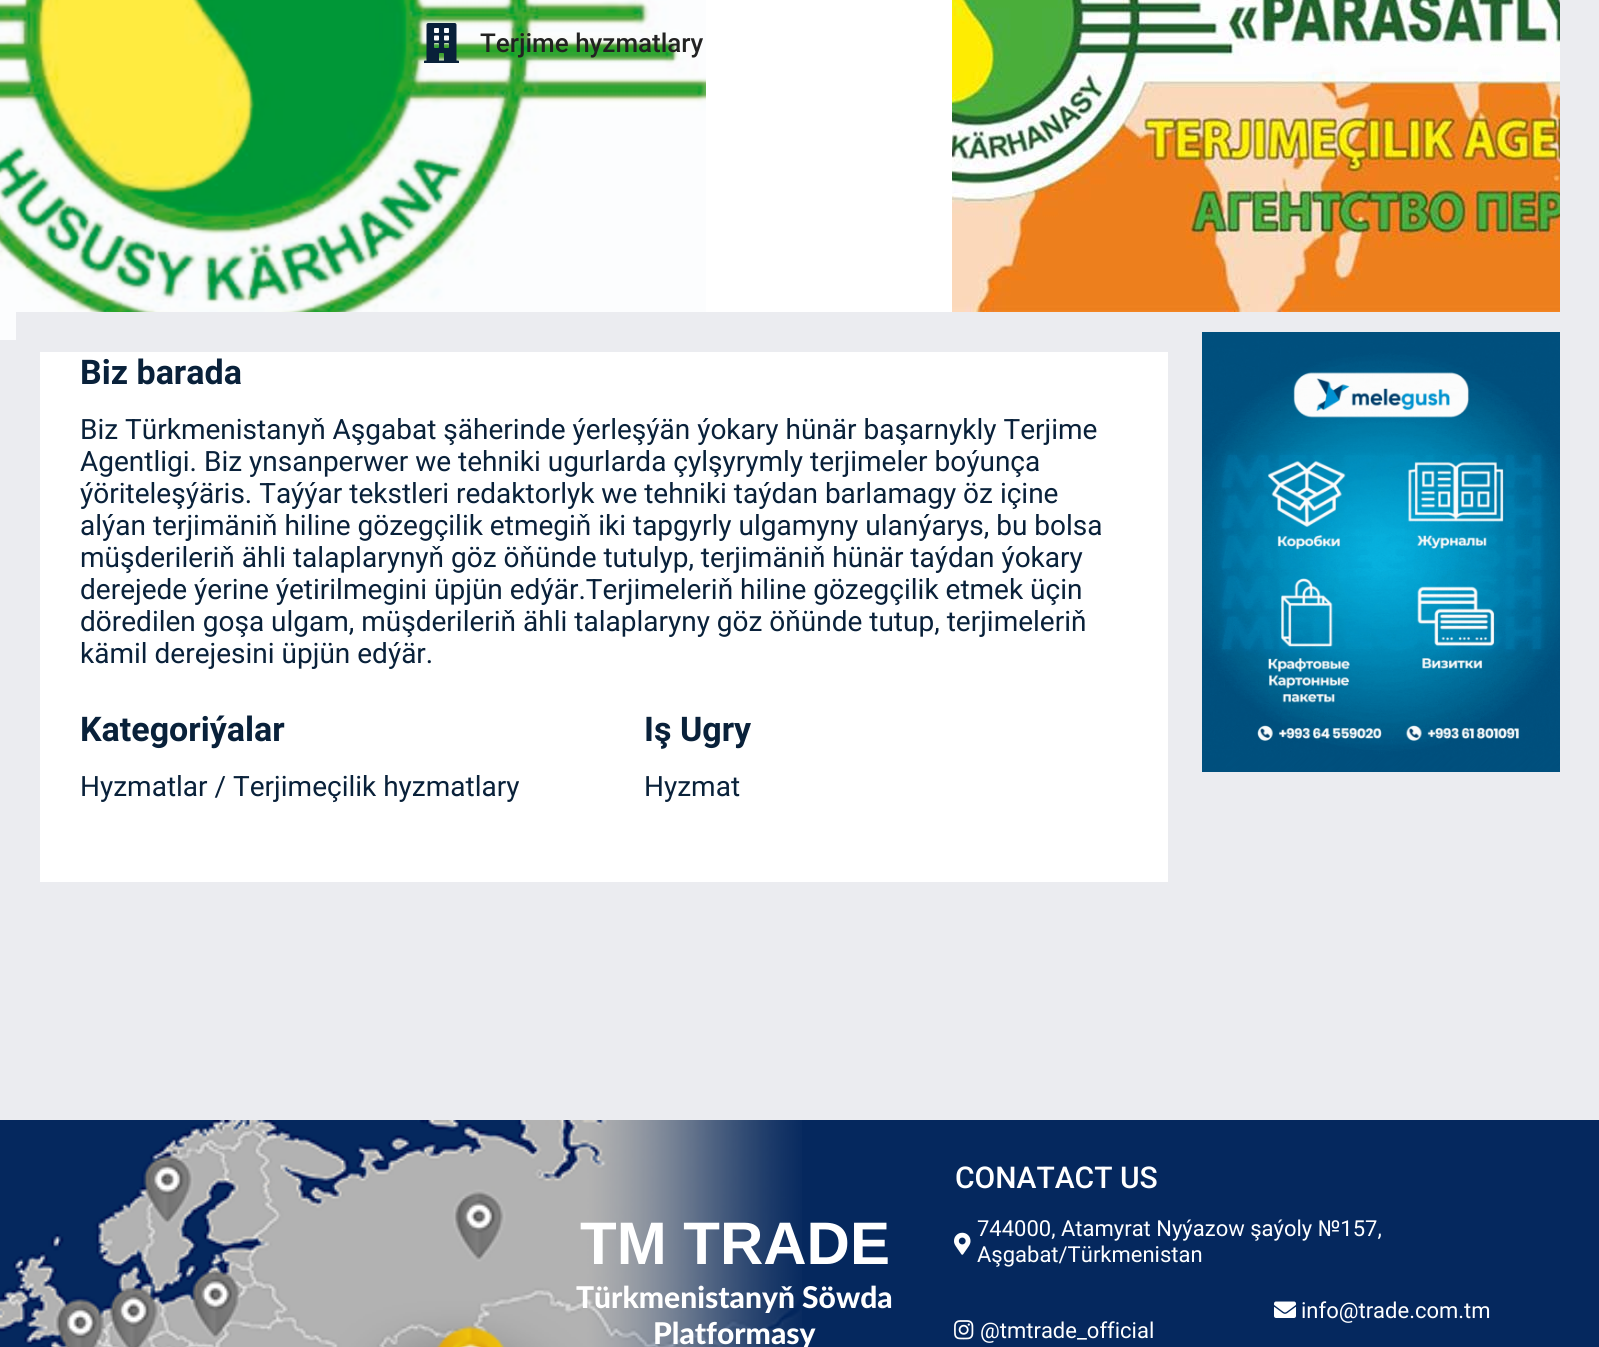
#include <cairo/cairo.h>
#include <math.h>
#include <stddef.h>

typedef struct { double x, y; const char *s; } line_t;
static cairo_t *cr;

static void rgb(unsigned color)
{
	cairo_set_source_rgb(cr, (color >> 16) / 255.0, (color >> 8 & 255) / 255.0, (color & 255) / 255.0);
}

static void image(const char *path, double x, double y, double w, double h)
{
	cairo_surface_t *image = cairo_image_surface_create_from_png(path);
	cairo_save(cr);
	cairo_set_source_surface(cr, image, x, y);
	cairo_rectangle(cr, x, y, w, h);
	cairo_fill(cr);
	cairo_restore(cr);
	cairo_surface_destroy(image);
}

int main(void) {
	cairo_surface_t *surface = cairo_image_surface_create(CAIRO_FORMAT_RGB24, 1599, 1347);
	cr = cairo_create(surface);
	cairo_font_options_t *options = cairo_font_options_create();
	cairo_font_options_set_hint_metrics(options, CAIRO_HINT_METRICS_OFF);
	cairo_font_options_set_hint_style(options, CAIRO_HINT_STYLE_NONE);
	cairo_set_font_options(cr, options);
	cairo_set_miter_limit(cr, 4);
	rgb(0xebecf0);
	cairo_paint(cr);
	rgb(0xffffff);
	cairo_rectangle(cr, 706, 0, 246, 312);
	cairo_fill(cr);
	image("img/1.png", 0, 0, 706, 340);
	image("img/2.png", 424, 23, 35, 40);
	image("img/3.png", 952, 0, 608, 312);
	rgb(0xebecf0);
	cairo_rectangle(cr, 16, 312, 690, 28);
	cairo_fill(cr);
	rgb(0xffffff);
	cairo_rectangle(cr, 40, 352, 1128, 530);
	cairo_fill(cr);
	image("img/4.png", 1202, 332, 358, 440);
	rgb(0x05285e);
	cairo_rectangle(cr, 802, 1120, 797, 227);
	cairo_fill(cr);
	image("img/5.png", 0, 1120, 802, 227);
	image("img/6.png", 954, 1232, 17, 23);
	image("img/7.png", 1274, 1301, 22, 17);
	image("img/8.png", 954, 1320, 20, 20);
	cairo_select_font_face(cr, "Roboto Medium", CAIRO_FONT_SLANT_NORMAL, CAIRO_FONT_WEIGHT_NORMAL);
	cairo_set_font_size(cr, 26);
	rgb(0x222222);
	cairo_move_to(cr, 480, 52);
	cairo_show_text(cr, "Terjime hyzmatlary");
	cairo_select_font_face(cr, "Roboto", CAIRO_FONT_SLANT_NORMAL, CAIRO_FONT_WEIGHT_BOLD);
	cairo_set_font_size(cr, 34);
	rgb(0x09213a);
	cairo_move_to(cr, 80, 384);
	cairo_show_text(cr, "Biz barada");
	cairo_select_font_face(cr, "Roboto", CAIRO_FONT_SLANT_NORMAL, CAIRO_FONT_WEIGHT_NORMAL);
	cairo_set_font_size(cr, 28);
	{
		static const line_t items[] = {
			{80, 439, "Biz Türkmenistanyň Aşgabat şäherinde ýerleşýän ýokary hünär başarnykly Terjime"},
			{80, 471, "Agentligi. Biz ynsanperwer we tehniki ugurlarda çylşyrymly terjimeler boýunça"},
			{80, 503, "ýöriteleşýäris. Taýýar tekstleri redaktorlyk we tehniki taýdan barlamagy öz içine"},
			{80, 535, "alýan terjimäniň hiline gözegçilik etmegiň iki tapgyrly ulgamyny ulanýarys, bu bolsa"},
			{80, 567, "müşderileriň ähli talaplarynyň göz öňünde tutulyp, terjimäniň hünär taýdan ýokary"},
			{80, 599, "derejede ýerine ýetirilmegini üpjün edýär.Terjimeleriň hiline gözegçilik etmek üçin"},
			{80, 631, "döredilen goşa ulgam, müşderileriň ähli talaplaryny göz öňünde tutup, terjimeleriň"},
			{80, 663, "kämil derejesini üpjün edýär."},
		};
		for (size_t i = 0; i < sizeof items / sizeof *items; i++) {
			cairo_move_to(cr, items[i].x, items[i].y);
			cairo_show_text(cr, items[i].s);
		}
	}
	cairo_select_font_face(cr, "Roboto", CAIRO_FONT_SLANT_NORMAL, CAIRO_FONT_WEIGHT_BOLD);
	cairo_set_font_size(cr, 34);
	cairo_move_to(cr, 80, 741);
	cairo_show_text(cr, "Kategoriýalar");
	cairo_select_font_face(cr, "Roboto", CAIRO_FONT_SLANT_NORMAL, CAIRO_FONT_WEIGHT_NORMAL);
	cairo_set_font_size(cr, 28);
	cairo_move_to(cr, 80, 796);
	cairo_show_text(cr, "Hyzmatlar / Terjimeçilik hyzmatlary");
	cairo_select_font_face(cr, "Roboto", CAIRO_FONT_SLANT_NORMAL, CAIRO_FONT_WEIGHT_BOLD);
	cairo_set_font_size(cr, 34);
	cairo_move_to(cr, 644, 741);
	cairo_show_text(cr, "Iş Ugry");
	cairo_select_font_face(cr, "Roboto", CAIRO_FONT_SLANT_NORMAL, CAIRO_FONT_WEIGHT_NORMAL);
	cairo_set_font_size(cr, 28);
	cairo_move_to(cr, 644, 796);
	cairo_show_text(cr, "Hyzmat");
	cairo_select_font_face(cr, "Liberation Sans", CAIRO_FONT_SLANT_NORMAL, CAIRO_FONT_WEIGHT_BOLD);
	cairo_set_font_size(cr, 60);
	rgb(0xffffff);
	cairo_move_to(cr, 580, 1264);
	cairo_show_text(cr, "TM TRADE");
	cairo_select_font_face(cr, "Lato Black", CAIRO_FONT_SLANT_NORMAL, CAIRO_FONT_WEIGHT_NORMAL);
	cairo_set_font_size(cr, 30);
	cairo_move_to(cr, 576, 1308);
	cairo_show_text(cr, "Türkmenistanyň Söwda");
	cairo_move_to(cr, 653, 1344);
	cairo_show_text(cr, "Platformasy");
	cairo_select_font_face(cr, "Roboto Medium", CAIRO_FONT_SLANT_NORMAL, CAIRO_FONT_WEIGHT_NORMAL);
	cairo_move_to(cr, 955, 1188);
	cairo_show_text(cr, "CONATACT US");
	cairo_select_font_face(cr, "Roboto", CAIRO_FONT_SLANT_NORMAL, CAIRO_FONT_WEIGHT_NORMAL);
	cairo_set_font_size(cr, 22);
	{
		static const line_t items[] = {
			{977, 1236, "744000, Atamyrat Nyýazow şaýoly №157,"},
			{977, 1262, "Aşgabat/Türkmenistan"},
			{1301, 1318, "info@trade.com.tm"},
			{980, 1338, "@tmtrade_official"},
		};
		for (size_t i = 0; i < sizeof items / sizeof *items; i++) {
			cairo_move_to(cr, items[i].x, items[i].y);
			cairo_show_text(cr, items[i].s);
		}
	}
	cairo_surface_write_to_png(surface, "page.png");
	cairo_font_options_destroy(options);
	cairo_destroy(cr);
	cairo_surface_destroy(surface);
	return 0;
}
